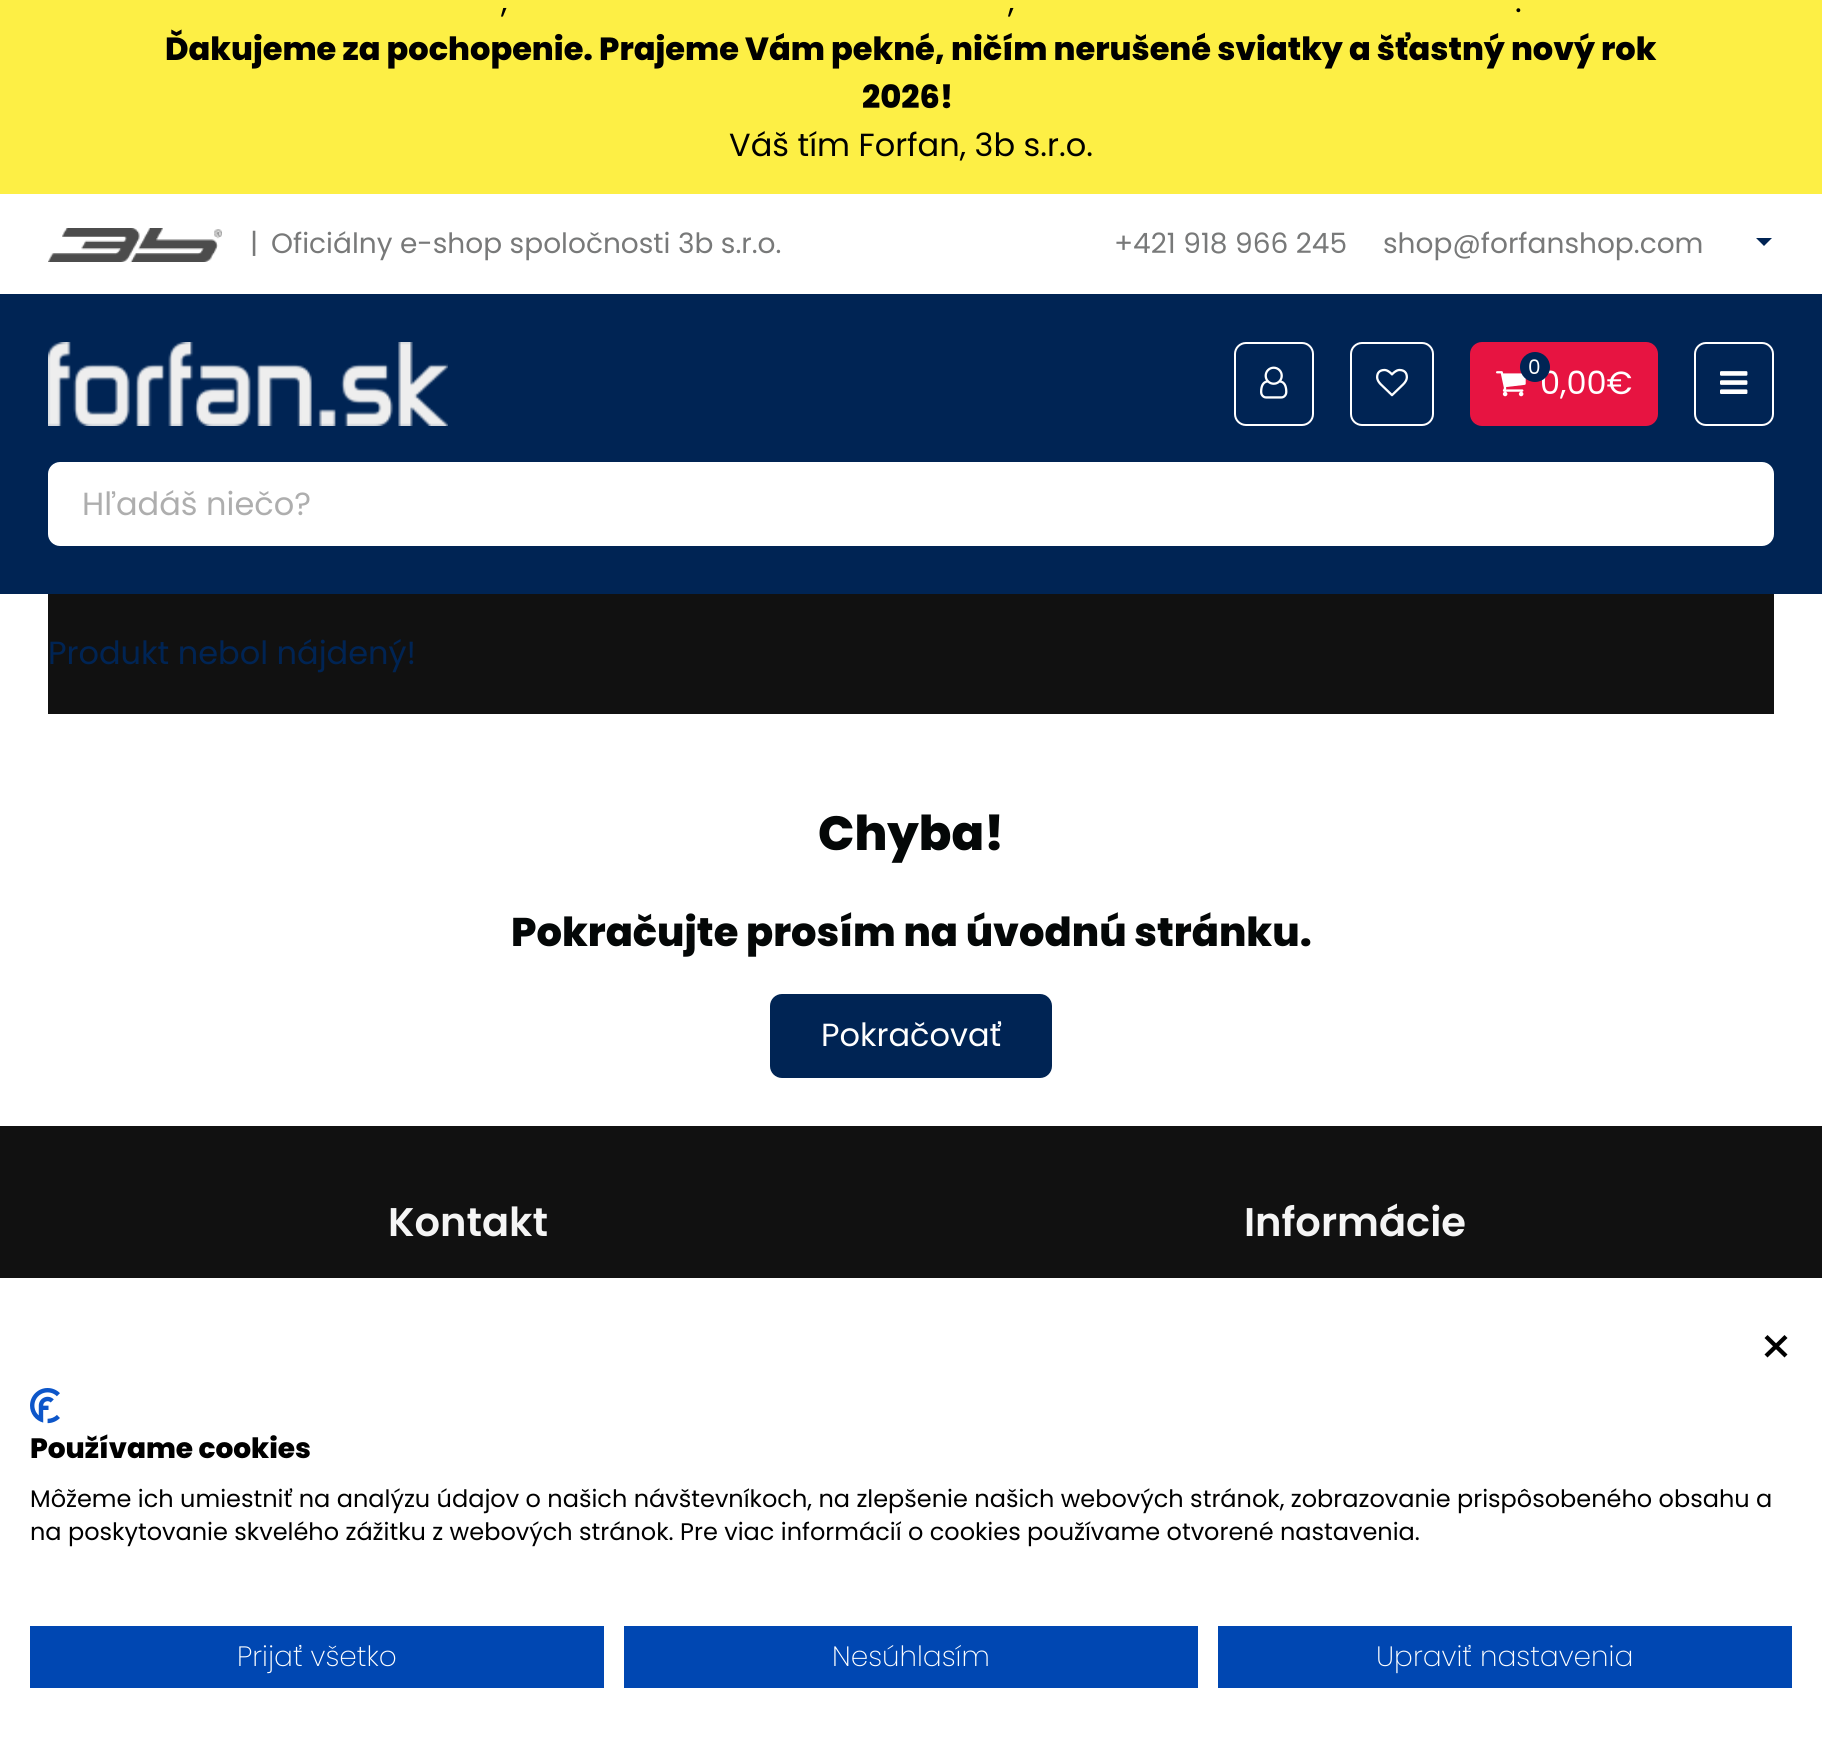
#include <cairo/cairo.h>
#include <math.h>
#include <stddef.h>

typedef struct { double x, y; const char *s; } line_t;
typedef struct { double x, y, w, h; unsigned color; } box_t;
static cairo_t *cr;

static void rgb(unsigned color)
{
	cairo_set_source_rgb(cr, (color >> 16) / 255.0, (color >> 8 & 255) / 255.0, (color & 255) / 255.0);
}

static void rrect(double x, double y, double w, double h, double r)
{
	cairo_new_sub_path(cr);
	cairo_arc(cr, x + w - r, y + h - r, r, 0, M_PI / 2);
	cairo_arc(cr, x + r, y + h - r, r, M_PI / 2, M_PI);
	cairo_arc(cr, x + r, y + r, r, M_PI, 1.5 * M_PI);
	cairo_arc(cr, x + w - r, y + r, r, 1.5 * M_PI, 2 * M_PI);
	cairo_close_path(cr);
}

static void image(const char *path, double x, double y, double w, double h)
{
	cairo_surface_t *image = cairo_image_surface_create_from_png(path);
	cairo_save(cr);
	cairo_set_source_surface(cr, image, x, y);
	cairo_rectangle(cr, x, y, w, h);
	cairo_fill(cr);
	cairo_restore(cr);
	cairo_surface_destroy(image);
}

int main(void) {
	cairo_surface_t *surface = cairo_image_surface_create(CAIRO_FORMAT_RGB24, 1822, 1741);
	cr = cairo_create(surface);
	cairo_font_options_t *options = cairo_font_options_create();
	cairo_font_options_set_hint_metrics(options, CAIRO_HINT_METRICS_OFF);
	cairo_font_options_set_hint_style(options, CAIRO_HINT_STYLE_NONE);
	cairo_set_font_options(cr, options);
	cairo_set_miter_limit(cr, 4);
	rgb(0xffffff);
	cairo_paint(cr);
	rgb(0xfdef45);
	cairo_rectangle(cr, 0, 0, 1822, 194);
	cairo_fill(cr);
	image("img/1.png", 48, 228, 174, 34);
	rgb(0x002454);
	cairo_new_path(cr);
	cairo_move_to(cr, 1756, 238);
	cairo_line_to(cr, 1772, 238);
	cairo_line_to(cr, 1764, 246);
	cairo_close_path(cr);
	cairo_fill(cr);
	cairo_rectangle(cr, 0, 294, 1822, 300);
	cairo_fill(cr);
	image("img/2.png", 48, 342, 400, 84);
	rrect(1235, 343, 78, 82, 11);
	rgb(0xffffff);
	cairo_stroke(cr);
	image("img/3.png", 1260, 366, 28, 33);
	rrect(1351, 343, 82, 82, 11);
	cairo_stroke(cr);
	image("img/4.png", 1376, 368, 32, 29);
	rgb(0xe71441);
	rrect(1471, 343, 186, 82, 11);
	cairo_fill_preserve(cr);
	cairo_stroke(cr);
	image("img/5.png", 1496, 371, 30, 26);
	rrect(1695, 343, 78, 82, 11);
	rgb(0xffffff);
	cairo_stroke(cr);
	image("img/6.png", 1720, 371, 28, 23);
	cairo_new_path(cr);
	cairo_move_to(cr, 60, 463);
	cairo_line_to(cr, 1699, 463);
	cairo_line_to(cr, 1699, 545);
	cairo_line_to(cr, 60, 545);
	cairo_curve_to(cr, 54, 545, 49, 540, 49, 534);
	cairo_line_to(cr, 49, 474);
	cairo_curve_to(cr, 49, 468, 54, 463, 60, 463);
	cairo_close_path(cr);
	cairo_fill_preserve(cr);
	cairo_stroke(cr);
	cairo_new_path(cr);
	cairo_move_to(cr, 1699, 463);
	cairo_line_to(cr, 1762, 463);
	cairo_curve_to(cr, 1768, 463, 1773, 468, 1773, 474);
	cairo_line_to(cr, 1773, 534);
	cairo_curve_to(cr, 1773, 540, 1768, 545, 1762, 545);
	cairo_line_to(cr, 1699, 545);
	cairo_close_path(cr);
	cairo_fill_preserve(cr);
	cairo_stroke(cr);
	rgb(0x111111);
	cairo_rectangle(cr, 48, 594, 1726, 120);
	cairo_fill(cr);
	rgb(0x002454);
	rrect(771, 995, 280, 82, 11);
	cairo_fill_preserve(cr);
	cairo_stroke(cr);
	rgb(0x111111);
	cairo_rectangle(cr, 0, 1126, 1822, 152);
	cairo_fill(cr);
	rgb(0x000000);
	cairo_new_path(cr);
	cairo_move_to(cr, 1784.5, 1335);
	cairo_line_to(cr, 1787.5, 1338);
	cairo_line_to(cr, 1767.5, 1357.5);
	cairo_line_to(cr, 1764.5, 1354.5);
	cairo_close_path(cr);
	cairo_fill(cr);
	cairo_new_path(cr);
	cairo_move_to(cr, 1764.5, 1338);
	cairo_line_to(cr, 1767.5, 1335);
	cairo_line_to(cr, 1787.5, 1354.5);
	cairo_line_to(cr, 1784.5, 1357.5);
	cairo_close_path(cr);
	cairo_fill(cr);
	image("img/7.png", 30, 1388, 30, 36);
	{
		static const box_t items[] = {
			{30, 1626, 574, 62, 0x0047b2},
			{624, 1626, 574, 62, 0x0047b2},
			{1218, 1626, 574, 62, 0x0047b2},
		};
		for (size_t i = 0; i < sizeof items / sizeof *items; i++) {
			rgb(items[i].color);
			cairo_rectangle(cr, items[i].x, items[i].y, items[i].w, items[i].h);
			cairo_fill(cr);
		}
	}
	cairo_select_font_face(cr, "Poppins", CAIRO_FONT_SLANT_NORMAL, CAIRO_FONT_WEIGHT_NORMAL);
	cairo_set_font_size(cr, 32);
	rgb(0x000000);
	{
		static const line_t items[] = {
			{501, 12, ","},
			{1008, 12, ","},
			{1515, 12, "."},
		};
		for (size_t i = 0; i < sizeof items / sizeof *items; i++) {
			cairo_move_to(cr, items[i].x, items[i].y);
			cairo_show_text(cr, items[i].s);
		}
	}
	cairo_select_font_face(cr, "Poppins ExtraBold", CAIRO_FONT_SLANT_NORMAL, CAIRO_FONT_WEIGHT_NORMAL);
	cairo_move_to(cr, 165, 60);
	cairo_show_text(cr, "Ďakujeme za pochopenie. Prajeme Vám pekné, ničím nerušené sviatky a šťastný nový rok");
	cairo_move_to(cr, 862, 108);
	cairo_show_text(cr, "2026!");
	cairo_select_font_face(cr, "Poppins", CAIRO_FONT_SLANT_NORMAL, CAIRO_FONT_WEIGHT_NORMAL);
	cairo_move_to(cr, 729, 156);
	cairo_show_text(cr, "Váš tím Forfan, 3b s.r.o.");
	cairo_set_font_size(cr, 28);
	rgb(0x787979);
	{
		static const line_t items[] = {
			{250, 253, "|"},
			{271, 253, "Oficiálny e-shop spoločnosti 3b s.r.o."},
			{1114, 253, "+421 918 966 245"},
			{1383, 253, "shop@forfanshop.com"},
		};
		for (size_t i = 0; i < sizeof items / sizeof *items; i++) {
			cairo_move_to(cr, items[i].x, items[i].y);
			cairo_show_text(cr, items[i].s);
		}
	}
	cairo_set_font_size(cr, 32);
	rgb(0xffffff);
	cairo_move_to(cr, 1540, 394);
	cairo_show_text(cr, "0,00€");
	rgb(0x002454);
	cairo_new_path(cr);
	cairo_arc(cr, 1535, 367, 15, 0, 2 * M_PI);
	cairo_fill(cr);
	cairo_set_font_size(cr, 20);
	rgb(0xffffff);
	cairo_move_to(cr, 1528, 374);
	cairo_show_text(cr, "0");
	cairo_set_font_size(cr, 32);
	rgb(0xaeaeae);
	cairo_move_to(cr, 82, 515);
	cairo_show_text(cr, "Hľadáš niečo?");
	rgb(0x002454);
	cairo_move_to(cr, 48, 664);
	cairo_show_text(cr, "Produkt nebol nájdený!");
	cairo_select_font_face(cr, "Poppins ExtraBold", CAIRO_FONT_SLANT_NORMAL, CAIRO_FONT_WEIGHT_NORMAL);
	cairo_set_font_size(cr, 48);
	rgb(0x040707);
	cairo_move_to(cr, 818, 850);
	cairo_show_text(cr, "Chyba!");
	cairo_set_font_size(cr, 40);
	cairo_move_to(cr, 511, 946);
	cairo_show_text(cr, "Pokračujte prosím na úvodnú stránku.");
	cairo_select_font_face(cr, "Poppins", CAIRO_FONT_SLANT_NORMAL, CAIRO_FONT_WEIGHT_NORMAL);
	cairo_set_font_size(cr, 32);
	rgb(0xffffff);
	cairo_move_to(cr, 821, 1046);
	cairo_show_text(cr, "Pokračovať");
	cairo_select_font_face(cr, "Poppins SemiBold", CAIRO_FONT_SLANT_NORMAL, CAIRO_FONT_WEIGHT_NORMAL);
	cairo_set_font_size(cr, 40);
	rgb(0xf5f5f5);
	cairo_move_to(cr, 388, 1236);
	cairo_show_text(cr, "Kontakt");
	cairo_move_to(cr, 1244, 1236);
	cairo_show_text(cr, "Informácie");
	cairo_select_font_face(cr, "Poppins ExtraBold", CAIRO_FONT_SLANT_NORMAL, CAIRO_FONT_WEIGHT_NORMAL);
	cairo_set_font_size(cr, 28);
	rgb(0x000000);
	cairo_move_to(cr, 30, 1458);
	cairo_show_text(cr, "Používame cookies");
	cairo_select_font_face(cr, "Poppins", CAIRO_FONT_SLANT_NORMAL, CAIRO_FONT_WEIGHT_NORMAL);
	cairo_set_font_size(cr, 24);
	cairo_move_to(cr, 30, 1507);
	cairo_show_text(cr, "Môžeme ich umiestniť na analýzu údajov o našich návštevníkoch, na zlepšenie našich webových stránok, zobrazovanie prispôsobeného obsahu a");
	cairo_move_to(cr, 30, 1540);
	cairo_show_text(cr, "na poskytovanie skvelého zážitku z webových stránok. Pre viac informácií o cookies používame otvorené nastavenia.");
	cairo_select_font_face(cr, "Poppins ExtraLight", CAIRO_FONT_SLANT_NORMAL, CAIRO_FONT_WEIGHT_NORMAL);
	cairo_set_font_size(cr, 28);
	rgb(0xffffff);
	{
		static const line_t items[] = {
			{237, 1666, "Prijať všetko"},
			{832, 1666, "Nesúhlasím"},
			{1376, 1666, "Upraviť nastavenia"},
		};
		for (size_t i = 0; i < sizeof items / sizeof *items; i++) {
			cairo_move_to(cr, items[i].x, items[i].y);
			cairo_show_text(cr, items[i].s);
		}
	}
	cairo_surface_write_to_png(surface, "page.png");
	cairo_font_options_destroy(options);
	cairo_destroy(cr);
	cairo_surface_destroy(surface);
	return 0;
}
